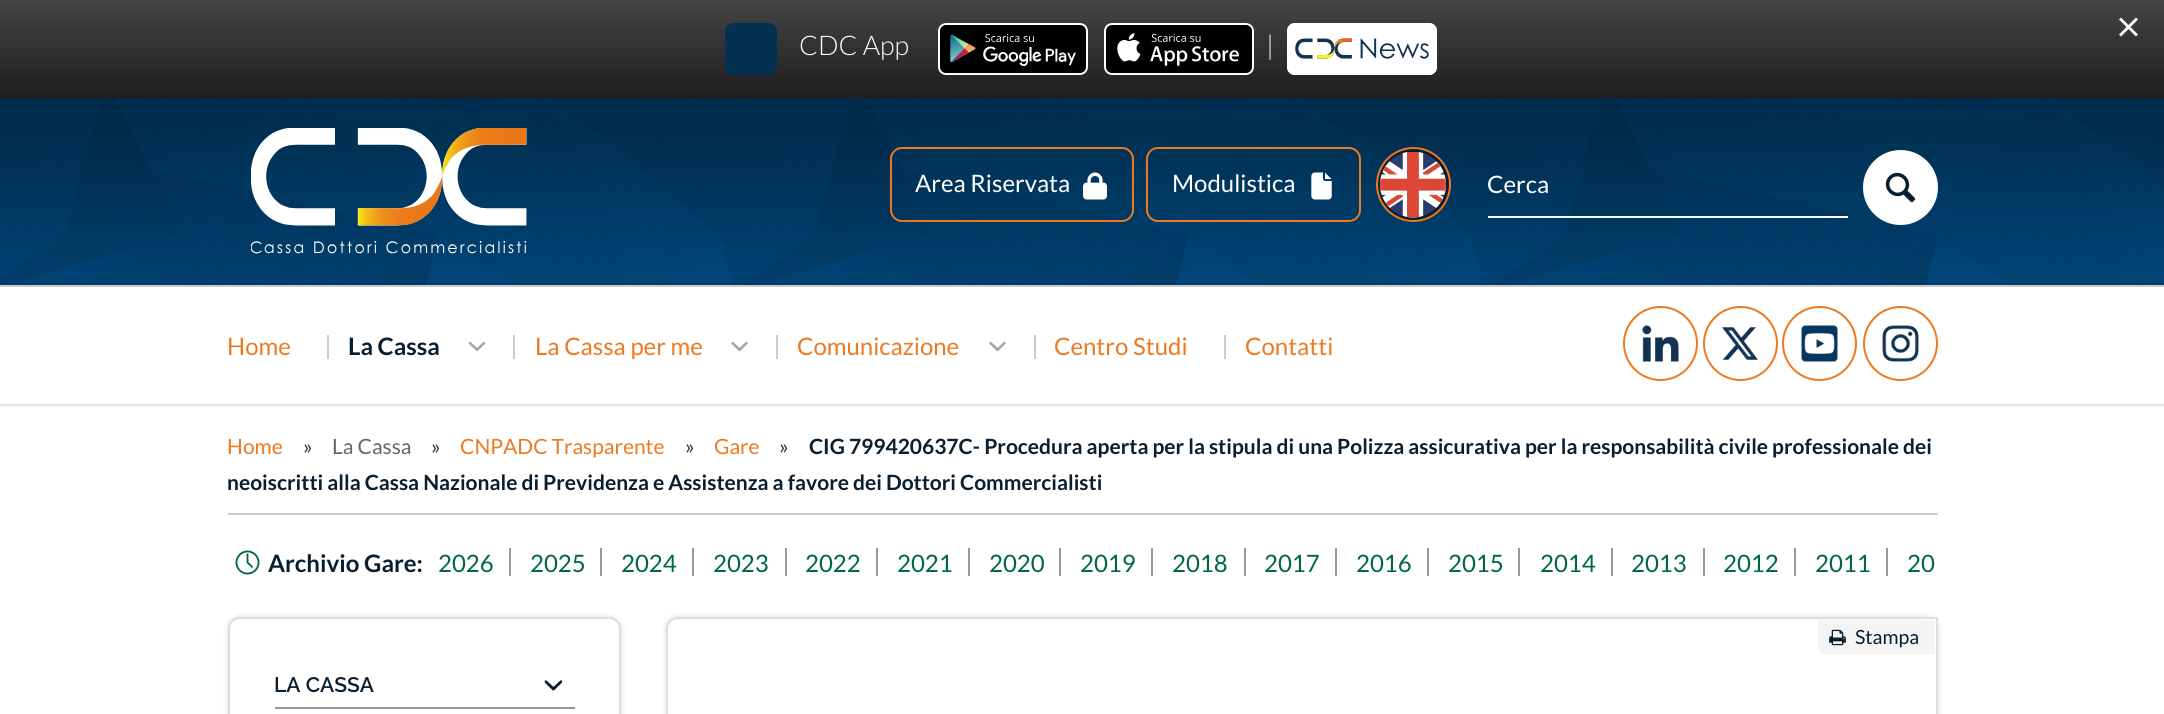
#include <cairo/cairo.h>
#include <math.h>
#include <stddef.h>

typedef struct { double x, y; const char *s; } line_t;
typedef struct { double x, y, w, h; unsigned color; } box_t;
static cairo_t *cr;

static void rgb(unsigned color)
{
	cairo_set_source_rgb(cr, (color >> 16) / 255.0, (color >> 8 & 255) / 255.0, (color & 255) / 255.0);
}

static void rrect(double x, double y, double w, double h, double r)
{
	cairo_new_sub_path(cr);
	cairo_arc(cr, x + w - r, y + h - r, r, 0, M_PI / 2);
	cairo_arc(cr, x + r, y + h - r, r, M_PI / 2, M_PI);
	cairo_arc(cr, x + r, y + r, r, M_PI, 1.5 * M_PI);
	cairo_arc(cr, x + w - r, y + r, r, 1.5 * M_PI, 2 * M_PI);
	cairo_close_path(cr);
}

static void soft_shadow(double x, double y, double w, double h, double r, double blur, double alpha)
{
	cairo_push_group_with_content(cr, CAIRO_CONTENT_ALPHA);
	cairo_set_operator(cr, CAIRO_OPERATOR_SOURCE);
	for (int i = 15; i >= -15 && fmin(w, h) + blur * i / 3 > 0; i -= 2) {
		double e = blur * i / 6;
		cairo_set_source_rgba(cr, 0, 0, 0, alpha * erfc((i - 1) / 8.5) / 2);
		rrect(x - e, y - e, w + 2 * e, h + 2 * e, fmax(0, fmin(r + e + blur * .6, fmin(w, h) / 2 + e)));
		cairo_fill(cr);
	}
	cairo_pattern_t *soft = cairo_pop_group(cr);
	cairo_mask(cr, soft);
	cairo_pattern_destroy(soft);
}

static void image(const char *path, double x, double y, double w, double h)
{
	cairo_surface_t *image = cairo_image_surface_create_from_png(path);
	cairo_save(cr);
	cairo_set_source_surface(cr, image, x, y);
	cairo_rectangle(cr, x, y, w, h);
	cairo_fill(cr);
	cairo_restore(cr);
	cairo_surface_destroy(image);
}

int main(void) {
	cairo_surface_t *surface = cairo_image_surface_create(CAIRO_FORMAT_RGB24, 2164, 714);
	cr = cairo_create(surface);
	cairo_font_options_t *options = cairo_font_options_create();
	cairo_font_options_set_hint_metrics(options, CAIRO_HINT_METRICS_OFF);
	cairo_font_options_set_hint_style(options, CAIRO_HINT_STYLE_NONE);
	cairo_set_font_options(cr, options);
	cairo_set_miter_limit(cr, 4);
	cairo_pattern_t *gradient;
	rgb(0xffffff);
	cairo_paint(cr);
	gradient = cairo_pattern_create_linear(1082, 0, 1082, 98);
	cairo_pattern_add_color_stop_rgba(gradient, 0, 0.267, 0.267, 0.267, 1);
	cairo_pattern_add_color_stop_rgba(gradient, 1, 0.118, 0.118, 0.118, 1);
	cairo_set_source(cr, gradient);
	cairo_pattern_destroy(gradient);
	cairo_rectangle(cr, 0, 0, 2164, 98);
	cairo_fill(cr);
	rgb(0xffffff);
	cairo_new_path(cr);
	cairo_move_to(cr, 2136, 17.5);
	cairo_line_to(cr, 2138, 19.5);
	cairo_line_to(cr, 2121, 36.5);
	cairo_line_to(cr, 2119, 34.5);
	cairo_close_path(cr);
	cairo_fill(cr);
	cairo_new_path(cr);
	cairo_move_to(cr, 2119, 19.5);
	cairo_line_to(cr, 2121, 17.5);
	cairo_line_to(cr, 2138, 34.5);
	cairo_line_to(cr, 2136, 36.5);
	cairo_close_path(cr);
	cairo_fill(cr);
	rgb(0x023152);
	rrect(725, 23, 52, 52, 8);
	cairo_fill(cr);
	rgb(0x000000);
	rrect(938, 23, 150, 52, 8);
	cairo_fill(cr);
	image("img/1.png", 950, 34, 126, 32);
	rrect(939, 24, 148, 50, 7);
	rgb(0xffffff);
	cairo_stroke(cr);
	rgb(0x000000);
	rrect(1104, 23, 150, 52, 8);
	cairo_fill(cr);
	image("img/2.png", 1117, 33, 122, 33);
	rrect(1105, 24, 148, 50, 7);
	rgb(0xffffff);
	cairo_stroke(cr);
	rrect(1287, 23, 150, 52, 8);
	cairo_fill(cr);
	image("img/3.png", 1295, 38, 134, 21);
	rrect(1288, 24, 148, 50, 7);
	cairo_stroke(cr);
	image("img/4.png", 0, 98, 2164, 187);
	image("img/5.png", 251, 128, 276, 126);
	rrect(891, 148, 242, 73, 11);
	rgb(0xed7921);
	cairo_stroke(cr);
	image("img/6.png", 1083, 172, 24, 28);
	rrect(1147, 148, 213, 73, 11);
	cairo_stroke(cr);
	image("img/7.png", 1311, 172, 21, 28);
	rgb(0x091e2f);
	cairo_arc(cr, 1413.5, 184.5, 37.5, 0, 2 * M_PI);
	cairo_fill(cr);
	image("img/8.png", 1380, 152, 66, 66);
	cairo_arc(cr, 1413.5, 184.5, 36.5, 0, 2 * M_PI);
	rgb(0xed7921);
	cairo_stroke(cr);
	rgb(0xffffff);
	cairo_rectangle(cr, 1488, 216, 360, 2);
	cairo_fill(cr);
	cairo_arc(cr, 1900.5, 187.5, 37.5, 0, 2 * M_PI);
	cairo_fill(cr);
	image("img/9.png", 1885, 172, 31, 31);
	rgb(0x000000);
	soft_shadow(0, 285, 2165, 119, 0, 2, 0.3);
	{
		static const box_t items[] = {
			{0, 287, 2164, 117, 0xffffff},
			{0, 285, 2164, 2, 0xcccccc},
			{327, 335, 2, 24, 0xcccccc},
		};
		for (size_t i = 0; i < sizeof items / sizeof *items; i++) {
			rgb(items[i].color);
			cairo_rectangle(cr, items[i].x, items[i].y, items[i].w, items[i].h);
			cairo_fill(cr);
		}
	}
	image("img/10.png", 468, 341, 18, 10);
	cairo_rectangle(cr, 513, 335, 2, 24);
	cairo_fill(cr);
	image("img/11.png", 731, 341, 17, 11);
	cairo_rectangle(cr, 776, 335, 2, 24);
	cairo_fill(cr);
	image("img/11.png", 989, 341, 17, 11);
	cairo_rectangle(cr, 1034, 335, 2, 24);
	cairo_fill(cr);
	cairo_rectangle(cr, 1224, 335, 2, 24);
	cairo_fill(cr);
	image("img/12.png", 1642, 325, 37, 37);
	cairo_arc(cr, 1660.5, 343.5, 36.5, 0, 2 * M_PI);
	rgb(0xed7921);
	cairo_stroke(cr);
	image("img/13.png", 1722, 327, 36, 33);
	cairo_arc(cr, 1740.5, 343.5, 36.5, 0, 2 * M_PI);
	cairo_stroke(cr);
	image("img/14.png", 1801, 325, 37, 37);
	cairo_arc(cr, 1819.5, 343.5, 36.5, 0, 2 * M_PI);
	cairo_stroke(cr);
	image("img/15.png", 1882, 325, 37, 37);
	cairo_arc(cr, 1900.5, 343.5, 36.5, 0, 2 * M_PI);
	cairo_stroke(cr);
	rgb(0xcccccc);
	cairo_rectangle(cr, 228, 513, 1710, 2);
	cairo_fill(cr);
	image("img/16.png", 235, 550, 25, 25);
	{
		static const box_t items[] = {
			{509, 548, 2, 28, 0x999999},
			{600, 548, 2, 28, 0x999999},
			{692, 548, 2, 28, 0x999999},
			{785, 548, 2, 28, 0x999999},
			{876, 548, 2, 28, 0x999999},
			{968, 548, 2, 28, 0x999999},
			{1059, 548, 2, 28, 0x999999},
			{1151, 548, 2, 28, 0x999999},
			{1244, 548, 2, 28, 0x999999},
			{1335, 548, 2, 28, 0x999999},
			{1427, 548, 2, 28, 0x999999},
			{1518, 548, 2, 28, 0x999999},
			{1611, 548, 2, 28, 0x999999},
			{1703, 548, 2, 28, 0x999999},
			{1794, 548, 2, 28, 0x999999},
			{1886, 548, 2, 28, 0x999999},
		};
		for (size_t i = 0; i < sizeof items / sizeof *items; i++) {
			rgb(items[i].color);
			cairo_rectangle(cr, items[i].x, items[i].y, items[i].w, items[i].h);
			cairo_fill(cr);
		}
	}
	rgb(0x000000);
	soft_shadow(666, 617, 1272, 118, 12, 3, 0.15);
	rgb(0xffffff);
	cairo_new_path(cr);
	cairo_move_to(cr, 678, 618);
	cairo_line_to(cr, 1937, 618);
	cairo_line_to(cr, 1937, 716);
	cairo_curve_to(cr, 1937, 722, 1932, 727, 1926, 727);
	cairo_line_to(cr, 678, 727);
	cairo_curve_to(cr, 672, 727, 667, 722, 667, 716);
	cairo_line_to(cr, 667, 629);
	cairo_curve_to(cr, 667, 623, 672, 618, 678, 618);
	cairo_close_path(cr);
	cairo_fill_preserve(cr);
	rgb(0xdddddd);
	cairo_stroke(cr);
	rgb(0xf4f4f4);
	cairo_new_path(cr);
	cairo_move_to(cr, 1818, 620);
	cairo_line_to(cr, 1935, 620);
	cairo_line_to(cr, 1935, 654);
	cairo_line_to(cr, 1826, 654);
	cairo_curve_to(cr, 1821.5, 654, 1818, 650.5, 1818, 646);
	cairo_close_path(cr);
	cairo_fill(cr);
	image("img/17.png", 1829, 629, 17, 17);
	rgb(0x000000);
	soft_shadow(228, 617, 393, 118, 12, 3, 0.15);
	rgb(0xffffff);
	rrect(229, 618, 391, 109, 11);
	cairo_fill_preserve(cr);
	rgb(0xdddddd);
	cairo_stroke(cr);
	rgb(0x999999);
	cairo_rectangle(cr, 275, 707, 300, 2);
	cairo_fill(cr);
	image("img/18.png", 544, 680, 19, 11);
	cairo_select_font_face(cr, "Lato Light", CAIRO_FONT_SLANT_NORMAL, CAIRO_FONT_WEIGHT_NORMAL);
	cairo_set_font_size(cr, 27);
	rgb(0xffffff);
	cairo_move_to(cr, 799, 55);
	cairo_show_text(cr, "CDC App");
	cairo_move_to(cr, 1266, 55);
	cairo_show_text(cr, "|");
	cairo_select_font_face(cr, "Lato", CAIRO_FONT_SLANT_NORMAL, CAIRO_FONT_WEIGHT_NORMAL);
	cairo_set_font_size(cr, 24);
	{
		static const line_t items[] = {
			{915, 192, "Area Riservata"},
			{1172, 192, "Modulistica"},
			{1487, 193, "Cerca"},
		};
		for (size_t i = 0; i < sizeof items / sizeof *items; i++) {
			cairo_move_to(cr, items[i].x, items[i].y);
			cairo_show_text(cr, items[i].s);
		}
	}
	rgb(0xed7921);
	cairo_move_to(cr, 227, 355);
	cairo_show_text(cr, "Home");
	cairo_select_font_face(cr, "Lato", CAIRO_FONT_SLANT_NORMAL, CAIRO_FONT_WEIGHT_BOLD);
	rgb(0x091e2f);
	cairo_move_to(cr, 348, 355);
	cairo_show_text(cr, "La Cassa");
	cairo_select_font_face(cr, "Lato", CAIRO_FONT_SLANT_NORMAL, CAIRO_FONT_WEIGHT_NORMAL);
	rgb(0xed7921);
	{
		static const line_t items[] = {
			{535, 355, "La Cassa per me"},
			{797, 355, "Comunicazione"},
			{1054, 355, "Centro Studi"},
			{1245, 355, "Contatti"},
		};
		for (size_t i = 0; i < sizeof items / sizeof *items; i++) {
			cairo_move_to(cr, items[i].x, items[i].y);
			cairo_show_text(cr, items[i].s);
		}
	}
	cairo_set_font_size(cr, 21);
	cairo_move_to(cr, 227, 454);
	cairo_show_text(cr, "Home");
	rgb(0x333333);
	cairo_move_to(cr, 303, 454);
	cairo_show_text(cr, "»");
	rgb(0x666666);
	cairo_move_to(cr, 332, 454);
	cairo_show_text(cr, "La Cassa");
	rgb(0x333333);
	cairo_move_to(cr, 431, 454);
	cairo_show_text(cr, "»");
	rgb(0xed7921);
	cairo_move_to(cr, 460, 454);
	cairo_show_text(cr, "CNPADC Trasparente");
	rgb(0x333333);
	cairo_move_to(cr, 685, 454);
	cairo_show_text(cr, "»");
	rgb(0xed7921);
	cairo_move_to(cr, 714, 454);
	cairo_show_text(cr, "Gare");
	rgb(0x333333);
	cairo_move_to(cr, 779, 454);
	cairo_show_text(cr, "»");
	cairo_select_font_face(cr, "Lato", CAIRO_FONT_SLANT_NORMAL, CAIRO_FONT_WEIGHT_BOLD);
	rgb(0x091e2f);
	cairo_move_to(cr, 809, 454);
	cairo_show_text(cr, "CIG 799420637C- Procedura aperta per la stipula di una Polizza assicurativa per la responsabilità civile professionale dei");
	cairo_move_to(cr, 227, 490);
	cairo_show_text(cr, "neoiscritti alla Cassa Nazionale di Previdenza e Assistenza a favore dei Dottori Commercialisti");
	cairo_set_font_size(cr, 24);
	cairo_move_to(cr, 268, 572);
	cairo_show_text(cr, "Archivio Gare:");
	cairo_select_font_face(cr, "Lato", CAIRO_FONT_SLANT_NORMAL, CAIRO_FONT_WEIGHT_NORMAL);
	rgb(0x00654a);
	{
		static const line_t items[] = {
			{438, 572, "2026"},
			{530, 572, "2025"},
			{621, 572, "2024"},
			{713, 572, "2023"},
			{805, 572, "2022"},
			{897, 572, "2021"},
			{989, 572, "2020"},
			{1080, 572, "2019"},
			{1172, 572, "2018"},
			{1264, 572, "2017"},
			{1356, 572, "2016"},
			{1448, 572, "2015"},
			{1540, 572, "2014"},
			{1631, 572, "2013"},
			{1723, 572, "2012"},
			{1815, 572, "2011"},
			{1907, 572, "20"},
		};
		for (size_t i = 0; i < sizeof items / sizeof *items; i++) {
			cairo_move_to(cr, items[i].x, items[i].y);
			cairo_show_text(cr, items[i].s);
		}
	}
	cairo_set_font_size(cr, 19.5);
	rgb(0x091e2f);
	cairo_move_to(cr, 1855, 644);
	cairo_show_text(cr, "Stampa");
	cairo_select_font_face(cr, "Raleway Thin", CAIRO_FONT_SLANT_NORMAL, CAIRO_FONT_WEIGHT_NORMAL);
	cairo_set_font_size(cr, 21);
	cairo_move_to(cr, 274, 692);
	cairo_show_text(cr, "LA CASSA");
	cairo_surface_write_to_png(surface, "page.png");
	cairo_font_options_destroy(options);
	cairo_destroy(cr);
	cairo_surface_destroy(surface);
	return 0;
}
